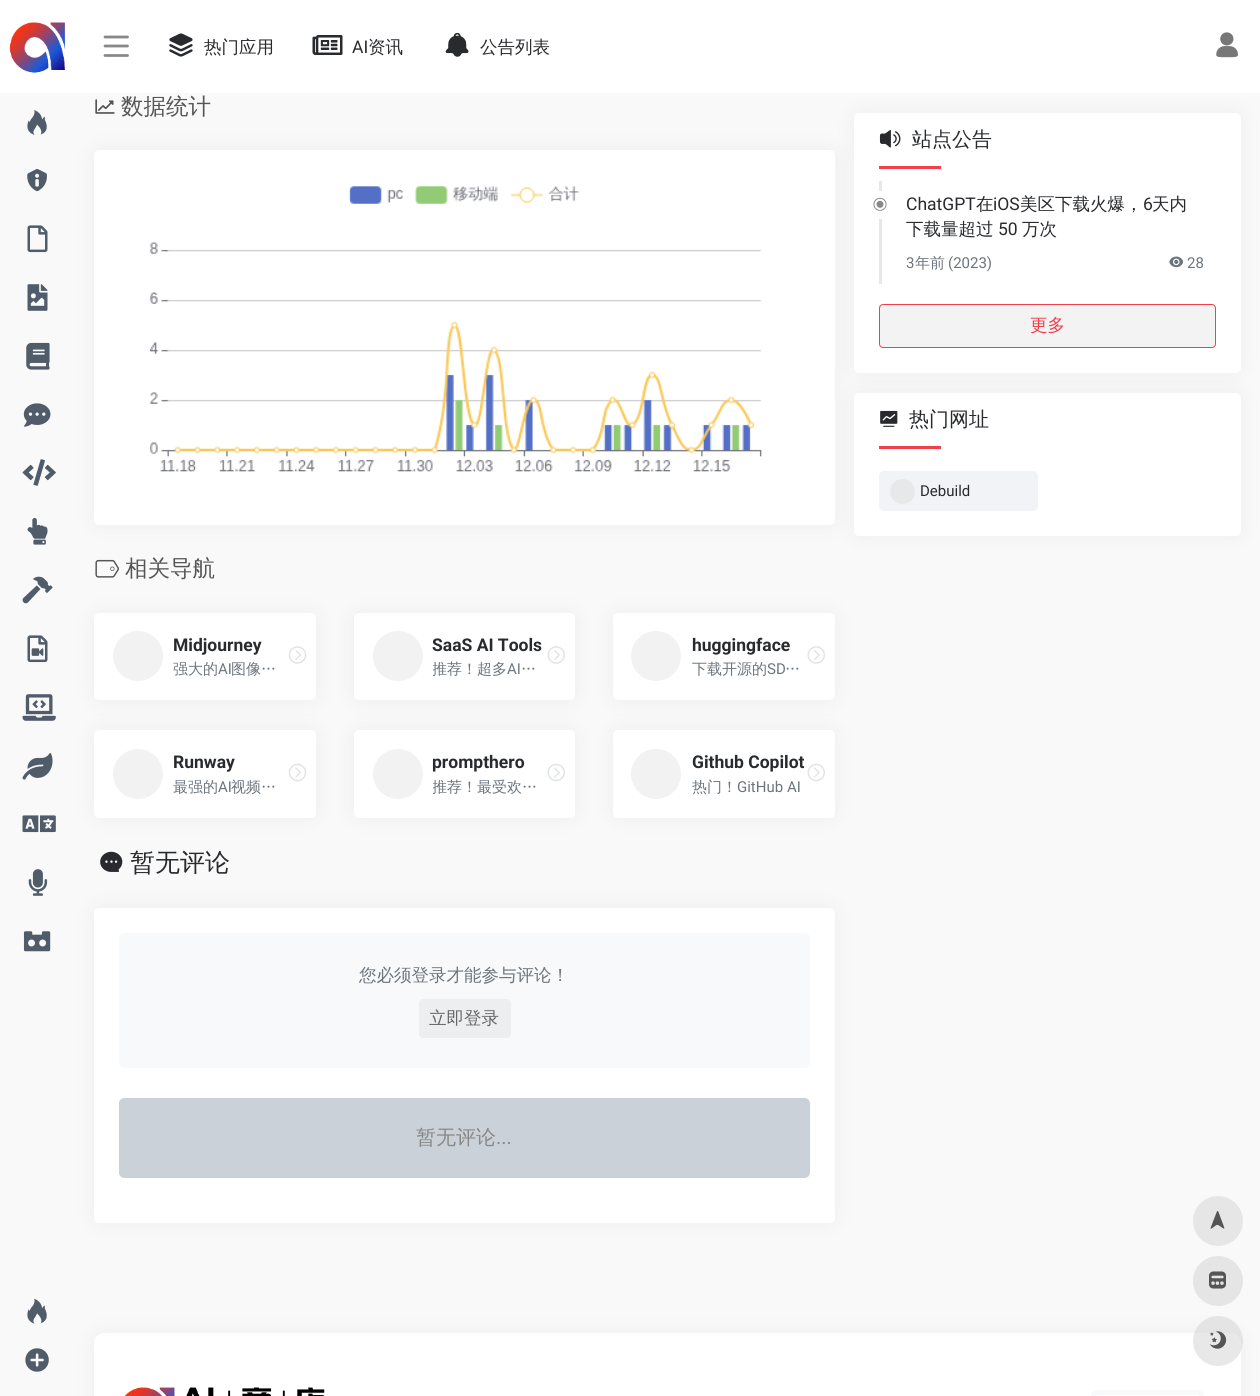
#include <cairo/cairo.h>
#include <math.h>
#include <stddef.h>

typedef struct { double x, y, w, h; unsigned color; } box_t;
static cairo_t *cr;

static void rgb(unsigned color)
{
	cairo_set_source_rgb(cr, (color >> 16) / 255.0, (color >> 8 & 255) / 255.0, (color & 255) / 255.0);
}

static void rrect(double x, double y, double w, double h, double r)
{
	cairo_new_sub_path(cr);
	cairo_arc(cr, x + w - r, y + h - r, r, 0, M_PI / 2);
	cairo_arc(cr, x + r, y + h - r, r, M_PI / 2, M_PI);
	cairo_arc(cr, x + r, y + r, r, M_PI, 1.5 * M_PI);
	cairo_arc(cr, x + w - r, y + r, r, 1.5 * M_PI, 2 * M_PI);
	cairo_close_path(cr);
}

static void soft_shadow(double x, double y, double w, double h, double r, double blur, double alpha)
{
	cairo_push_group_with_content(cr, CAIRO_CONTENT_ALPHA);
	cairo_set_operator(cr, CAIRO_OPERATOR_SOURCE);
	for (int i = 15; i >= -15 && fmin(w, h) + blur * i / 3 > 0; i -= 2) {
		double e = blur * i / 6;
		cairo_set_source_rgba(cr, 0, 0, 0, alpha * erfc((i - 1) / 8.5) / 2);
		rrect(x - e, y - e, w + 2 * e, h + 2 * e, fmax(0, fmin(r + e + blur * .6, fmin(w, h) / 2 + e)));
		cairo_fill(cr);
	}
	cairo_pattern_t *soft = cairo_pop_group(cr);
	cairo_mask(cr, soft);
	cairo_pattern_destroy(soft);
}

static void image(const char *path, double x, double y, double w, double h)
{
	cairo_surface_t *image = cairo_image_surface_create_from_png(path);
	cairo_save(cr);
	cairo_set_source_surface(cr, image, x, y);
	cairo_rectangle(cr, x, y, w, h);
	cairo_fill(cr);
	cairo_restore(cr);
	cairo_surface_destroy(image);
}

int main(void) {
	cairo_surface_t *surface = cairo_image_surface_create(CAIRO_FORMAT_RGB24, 1260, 1396);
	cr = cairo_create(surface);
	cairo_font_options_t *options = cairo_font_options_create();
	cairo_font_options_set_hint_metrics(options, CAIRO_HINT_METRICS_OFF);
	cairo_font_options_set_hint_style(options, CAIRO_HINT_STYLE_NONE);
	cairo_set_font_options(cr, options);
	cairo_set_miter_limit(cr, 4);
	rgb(0xf9f9f9);
	cairo_paint(cr);
	rgb(0x9e9e9e);
	soft_shadow(100, 156, 729, 363, 0, 12.5, 0.2);
	rgb(0xffffff);
	rrect(94, 150, 741, 375, 5);
	cairo_fill(cr);
	rgb(0x9e9e9e);
	soft_shadow(860, 119, 375, 247, 0, 12.5, 0.2);
	rgb(0xffffff);
	cairo_rectangle(cr, 0, 0, 1260, 93);
	cairo_fill(cr);
	image("img/1.png", 9, 22, 56, 51);
	image("img/2.png", 27, 110, 20, 25);
	image("img/3.png", 27, 169, 20, 23);
	image("img/4.png", 27, 225, 21, 28);
	image("img/5.png", 27, 284, 21, 27);
	image("img/6.png", 26, 342, 24, 28);
	image("img/7.png", 23, 403, 28, 24);
	image("img/8.png", 22, 459, 34, 27);
	image("img/9.png", 27, 517, 21, 28);
	image("img/10.png", 22, 576, 31, 28);
	image("img/11.png", 27, 635, 21, 28);
	image("img/12.png", 22, 694, 34, 27);
	image("img/13.png", 22, 753, 31, 27);
	image("img/14.png", 22, 815, 34, 18);
	image("img/15.png", 28, 869, 20, 27);
	image("img/16.png", 23, 931, 28, 21);
	image("img/17.png", 27, 1298, 20, 26);
	image("img/18.png", 25, 1348, 24, 24);
	cairo_new_path(cr);
	cairo_move_to(cr, 105, 37);
	cairo_line_to(cr, 127.5, 37);
	cairo_move_to(cr, 105, 46);
	cairo_line_to(cr, 127.5, 46);
	cairo_move_to(cr, 105, 55.5);
	cairo_line_to(cr, 127.5, 55.5);
	rgb(0x888888);
	cairo_set_line_width(cr, 2.8);
	cairo_set_line_cap(cr, CAIRO_LINE_CAP_ROUND);
	cairo_set_line_join(cr, CAIRO_LINE_JOIN_ROUND);
	cairo_stroke(cr);
	image("img/19.png", 169, 33, 24, 24);
	image("img/20.png", 312, 35, 31, 20);
	image("img/21.png", 445, 32, 24, 25);
	image("img/22.png", 1216, 32, 22, 26);
	image("img/23.png", 95, 99, 20, 15);
	image("img/24.png", 149, 186, 614, 286);
	image("img/25.png", 95, 559, 24, 19);
	rgb(0x9e9e9e);
	soft_shadow(100, 619, 210, 75, 0, 12.5, 0.2);
	rgb(0xffffff);
	rrect(94, 613, 222, 87, 5);
	cairo_fill(cr);
	rgb(0xf2f2f2);
	cairo_arc(cr, 138, 656, 25, 0, 2 * M_PI);
	cairo_fill(cr);
	image("img/26.png", 288, 646, 19, 18);
	rgb(0x9e9e9e);
	soft_shadow(360, 619, 209, 75, 0, 12.5, 0.2);
	rgb(0xffffff);
	rrect(354, 613, 221, 87, 5);
	cairo_fill(cr);
	rgb(0xf2f2f2);
	cairo_arc(cr, 398, 656, 25, 0, 2 * M_PI);
	cairo_fill(cr);
	image("img/27.png", 547, 646, 18, 18);
	rgb(0x9e9e9e);
	soft_shadow(619, 619, 210, 75, 0, 12.5, 0.2);
	rgb(0xffffff);
	rrect(613, 613, 222, 87, 5);
	cairo_fill(cr);
	rgb(0xf2f2f2);
	cairo_arc(cr, 656, 656, 25, 0, 2 * M_PI);
	cairo_fill(cr);
	image("img/27.png", 807, 646, 18, 18);
	rgb(0x9e9e9e);
	soft_shadow(100, 736, 210, 75, 0, 12.5, 0.2);
	rgb(0xffffff);
	rrect(94, 730, 222, 88, 5);
	cairo_fill(cr);
	rgb(0xf2f2f2);
	cairo_arc(cr, 138, 774, 25, 0, 2 * M_PI);
	cairo_fill(cr);
	image("img/28.png", 288, 763, 19, 19);
	rgb(0x9e9e9e);
	soft_shadow(360, 736, 209, 75, 0, 12.5, 0.2);
	rgb(0xffffff);
	rrect(354, 730, 221, 88, 5);
	cairo_fill(cr);
	rgb(0xf2f2f2);
	cairo_arc(cr, 398, 774, 25, 0, 2 * M_PI);
	cairo_fill(cr);
	image("img/29.png", 547, 763, 18, 19);
	rgb(0x9e9e9e);
	soft_shadow(619, 736, 210, 75, 0, 12.5, 0.2);
	rgb(0xffffff);
	rrect(613, 730, 222, 88, 5);
	cairo_fill(cr);
	rgb(0xf2f2f2);
	cairo_arc(cr, 656, 774, 25, 0, 2 * M_PI);
	cairo_fill(cr);
	image("img/29.png", 807, 763, 18, 19);
	image("img/30.png", 100, 851, 23, 21);
	rgb(0x9e9e9e);
	soft_shadow(100, 914, 729, 302, 0, 12.5, 0.2);
	rgb(0xffffff);
	rrect(94, 908, 741, 315, 5);
	cairo_fill(cr);
	rgb(0xf8f9fa);
	rrect(119, 933, 691, 135, 5);
	cairo_fill(cr);
	rgb(0xedeeef);
	rrect(419, 999, 92, 39, 4);
	cairo_fill(cr);
	cairo_set_source_rgba(cr, 0.533, 0.631, 0.78, 0.3);
	rrect(119, 1098, 691, 80, 5);
	cairo_fill(cr);
	cairo_set_source_rgba(cr, 0.533, 0.533, 0.533, 0.2);
	rrect(119, 1098, 691, 80, 6);
	cairo_fill(cr);
	rgb(0xffffff);
	rrect(854, 113, 387, 260, 5);
	cairo_fill(cr);
	image("img/31.png", 879, 130, 22, 18);
	{
		static const box_t items[] = {
			{879, 166, 62, 3, 0xf1404b},
			{879, 181, 3, 103, 0xe7e7e7},
			{879, 191, 3, 28, 0xffffff},
		};
		for (size_t i = 0; i < sizeof items / sizeof *items; i++) {
			rgb(items[i].color);
			cairo_rectangle(cr, items[i].x, items[i].y, items[i].w, items[i].h);
			cairo_fill(cr);
		}
	}
	image("img/32.png", 873, 197, 14, 14);
	image("img/33.png", 1169, 256, 15, 12);
	rgb(0xf3f3f3);
	rrect(879.5, 304.5, 336, 43, 3.5);
	cairo_fill_preserve(cr);
	rgb(0xf1404b);
	cairo_set_line_width(cr, 1);
	cairo_set_line_cap(cr, CAIRO_LINE_CAP_BUTT);
	cairo_set_line_join(cr, CAIRO_LINE_JOIN_MITER);
	cairo_stroke(cr);
	rgb(0x9e9e9e);
	soft_shadow(860, 399, 375, 131, 0, 12.5, 0.2);
	rgb(0xffffff);
	rrect(854, 393, 387, 143, 5);
	cairo_fill(cr);
	image("img/34.png", 880, 410, 18, 17);
	rgb(0xf1404b);
	cairo_rectangle(cr, 879, 446, 62, 3);
	cairo_fill(cr);
	rgb(0xf1f3f6);
	rrect(879.5, 471.5, 158, 39, 4.5);
	cairo_fill_preserve(cr);
	cairo_stroke(cr);
	rgb(0xe6e8ea);
	cairo_arc(cr, 902.5, 491.5, 12.5, 0, 2 * M_PI);
	cairo_fill(cr);
	rgb(0x9e9e9e);
	soft_shadow(100, 1339, 1135, 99, 4, 12.5, 0.2);
	rgb(0xffffff);
	rrect(94, 1333, 1147, 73, 10);
	cairo_fill(cr);
	image("img/35.png", 125, 1387, 200, 9);
	rgb(0xf8f9fa);
	rrect(1091, 1390, 113, 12, 6);
	cairo_fill(cr);
	image("img/36.png", 1096, 1395, 103, 1);
	rgb(0xe6e6e6);
	cairo_arc(cr, 1218, 1221, 25, 0, 2 * M_PI);
	cairo_fill(cr);
	image("img/37.png", 1210, 1211, 15, 18);
	rgb(0xe5e5e5);
	cairo_arc(cr, 1218, 1281, 25, 0, 2 * M_PI);
	cairo_fill(cr);
	image("img/38.png", 1209, 1271, 17, 18);
	cairo_set_source_rgba(cr, 0.824, 0.824, 0.824, 0.5);
	cairo_arc(cr, 1218, 1341, 25, 0, 2 * M_PI);
	cairo_fill(cr);
	image("img/39.png", 1209, 1331, 18, 18);
	cairo_select_font_face(cr, "WenQuanYi Zen Hei Medium", CAIRO_FONT_SLANT_NORMAL, CAIRO_FONT_WEIGHT_NORMAL);
	cairo_set_font_size(cr, 17.5);
	rgb(0x282a2d);
	cairo_move_to(cr, 204, 53);
	cairo_show_text(cr, "热门应用");
	cairo_select_font_face(cr, "Roboto", CAIRO_FONT_SLANT_NORMAL, CAIRO_FONT_WEIGHT_NORMAL);
	cairo_move_to(cr, 352, 53);
	cairo_show_text(cr, "AI");
	cairo_select_font_face(cr, "WenQuanYi Zen Hei Medium", CAIRO_FONT_SLANT_NORMAL, CAIRO_FONT_WEIGHT_NORMAL);
	cairo_move_to(cr, 368, 53);
	cairo_show_text(cr, "资讯");
	cairo_move_to(cr, 480, 53);
	cairo_show_text(cr, "公告列表");
	cairo_set_font_size(cr, 22.5);
	rgb(0x555555);
	cairo_move_to(cr, 121, 114);
	cairo_show_text(cr, "数据统计");
	cairo_move_to(cr, 125, 576);
	cairo_show_text(cr, "相关导航");
	cairo_select_font_face(cr, "Roboto", CAIRO_FONT_SLANT_NORMAL, CAIRO_FONT_WEIGHT_BOLD);
	cairo_set_font_size(cr, 17.5);
	rgb(0x282a2d);
	cairo_move_to(cr, 173, 651);
	cairo_show_text(cr, "Midjourney");
	cairo_select_font_face(cr, "WenQuanYi Zen Hei Medium", CAIRO_FONT_SLANT_NORMAL, CAIRO_FONT_WEIGHT_NORMAL);
	cairo_set_font_size(cr, 15);
	rgb(0x6c757d);
	cairo_move_to(cr, 173, 674);
	cairo_show_text(cr, "强大的");
	cairo_select_font_face(cr, "Roboto", CAIRO_FONT_SLANT_NORMAL, CAIRO_FONT_WEIGHT_NORMAL);
	cairo_move_to(cr, 218, 674);
	cairo_show_text(cr, "AI");
	cairo_select_font_face(cr, "WenQuanYi Zen Hei Medium", CAIRO_FONT_SLANT_NORMAL, CAIRO_FONT_WEIGHT_NORMAL);
	cairo_move_to(cr, 231, 674);
	cairo_show_text(cr, "图像…");
	cairo_select_font_face(cr, "Roboto", CAIRO_FONT_SLANT_NORMAL, CAIRO_FONT_WEIGHT_BOLD);
	cairo_set_font_size(cr, 17.5);
	rgb(0x282a2d);
	cairo_move_to(cr, 432, 651);
	cairo_show_text(cr, "SaaS AI Tools");
	cairo_save(cr);
	cairo_rectangle(cr, 433, 658, 117, 22);
	cairo_clip(cr);
	cairo_select_font_face(cr, "WenQuanYi Zen Hei Medium", CAIRO_FONT_SLANT_NORMAL, CAIRO_FONT_WEIGHT_NORMAL);
	cairo_set_font_size(cr, 15);
	rgb(0x6c757d);
	cairo_move_to(cr, 432, 674);
	cairo_show_text(cr, "推荐！超多");
	cairo_restore(cr);
	cairo_select_font_face(cr, "Roboto", CAIRO_FONT_SLANT_NORMAL, CAIRO_FONT_WEIGHT_NORMAL);
	cairo_set_font_size(cr, 15);
	rgb(0x6c757d);
	cairo_move_to(cr, 507, 674);
	cairo_show_text(cr, "AI");
	cairo_select_font_face(cr, "WenQuanYi Zen Hei Medium", CAIRO_FONT_SLANT_NORMAL, CAIRO_FONT_WEIGHT_NORMAL);
	cairo_move_to(cr, 521, 674);
	cairo_show_text(cr, "…");
	cairo_select_font_face(cr, "Roboto", CAIRO_FONT_SLANT_NORMAL, CAIRO_FONT_WEIGHT_BOLD);
	cairo_set_font_size(cr, 17.5);
	rgb(0x282a2d);
	cairo_move_to(cr, 692, 651);
	cairo_show_text(cr, "huggingface");
	cairo_select_font_face(cr, "WenQuanYi Zen Hei Medium", CAIRO_FONT_SLANT_NORMAL, CAIRO_FONT_WEIGHT_NORMAL);
	cairo_set_font_size(cr, 15);
	rgb(0x6c757d);
	cairo_move_to(cr, 692, 674);
	cairo_show_text(cr, "下载开源的");
	cairo_select_font_face(cr, "Roboto", CAIRO_FONT_SLANT_NORMAL, CAIRO_FONT_WEIGHT_NORMAL);
	cairo_move_to(cr, 767, 674);
	cairo_show_text(cr, "SD");
	cairo_select_font_face(cr, "WenQuanYi Zen Hei Medium", CAIRO_FONT_SLANT_NORMAL, CAIRO_FONT_WEIGHT_NORMAL);
	cairo_move_to(cr, 785, 674);
	cairo_show_text(cr, "…");
	cairo_select_font_face(cr, "Roboto", CAIRO_FONT_SLANT_NORMAL, CAIRO_FONT_WEIGHT_BOLD);
	cairo_set_font_size(cr, 17.5);
	rgb(0x282a2d);
	cairo_move_to(cr, 173, 768);
	cairo_show_text(cr, "Runway");
	cairo_select_font_face(cr, "WenQuanYi Zen Hei Medium", CAIRO_FONT_SLANT_NORMAL, CAIRO_FONT_WEIGHT_NORMAL);
	cairo_set_font_size(cr, 15);
	rgb(0x6c757d);
	cairo_move_to(cr, 173, 792);
	cairo_show_text(cr, "最强的");
	cairo_select_font_face(cr, "Roboto", CAIRO_FONT_SLANT_NORMAL, CAIRO_FONT_WEIGHT_NORMAL);
	cairo_move_to(cr, 218, 792);
	cairo_show_text(cr, "AI");
	cairo_select_font_face(cr, "WenQuanYi Zen Hei Medium", CAIRO_FONT_SLANT_NORMAL, CAIRO_FONT_WEIGHT_NORMAL);
	cairo_move_to(cr, 231, 792);
	cairo_show_text(cr, "视频…");
	cairo_select_font_face(cr, "Roboto", CAIRO_FONT_SLANT_NORMAL, CAIRO_FONT_WEIGHT_BOLD);
	cairo_set_font_size(cr, 17.5);
	rgb(0x282a2d);
	cairo_move_to(cr, 432, 768);
	cairo_show_text(cr, "prompthero");
	cairo_save(cr);
	cairo_rectangle(cr, 433, 775, 117, 23);
	cairo_clip(cr);
	cairo_select_font_face(cr, "WenQuanYi Zen Hei Medium", CAIRO_FONT_SLANT_NORMAL, CAIRO_FONT_WEIGHT_NORMAL);
	cairo_set_font_size(cr, 15);
	rgb(0x6c757d);
	cairo_move_to(cr, 432, 792);
	cairo_show_text(cr, "推荐！最受欢…");
	cairo_restore(cr);
	cairo_move_to(cr, 692, 768);
	cairo_show_text(cr, "Github Copilot");
	cairo_select_font_face(cr, "WenQuanYi Zen Hei Medium", CAIRO_FONT_SLANT_NORMAL, CAIRO_FONT_WEIGHT_NORMAL);
	cairo_set_font_size(cr, 15);
	rgb(0x6c757d);
	cairo_move_to(cr, 692, 792);
	cairo_show_text(cr, "热门！");
	cairo_select_font_face(cr, "Roboto", CAIRO_FONT_SLANT_NORMAL, CAIRO_FONT_WEIGHT_NORMAL);
	cairo_move_to(cr, 737, 792);
	cairo_show_text(cr, "GitHub AI");
	cairo_select_font_face(cr, "WenQuanYi Zen Hei Medium", CAIRO_FONT_SLANT_NORMAL, CAIRO_FONT_WEIGHT_NORMAL);
	cairo_set_font_size(cr, 25);
	rgb(0x282a2d);
	cairo_move_to(cr, 130, 871);
	cairo_show_text(cr, "暂无评论");
	cairo_set_font_size(cr, 17.5);
	rgb(0x6c757d);
	cairo_move_to(cr, 359, 981);
	cairo_show_text(cr, "您必须登录才能参与评论！");
	rgb(0x666666);
	cairo_move_to(cr, 429, 1024);
	cairo_show_text(cr, "立即登录");
	cairo_set_font_size(cr, 20);
	rgb(0x888888);
	cairo_move_to(cr, 416, 1144);
	cairo_show_text(cr, "暂无评论");
	cairo_select_font_face(cr, "Roboto", CAIRO_FONT_SLANT_NORMAL, CAIRO_FONT_WEIGHT_NORMAL);
	cairo_move_to(cr, 496, 1144);
	cairo_show_text(cr, "...");
	cairo_select_font_face(cr, "WenQuanYi Zen Hei Medium", CAIRO_FONT_SLANT_NORMAL, CAIRO_FONT_WEIGHT_NORMAL);
	rgb(0x282a2d);
	cairo_move_to(cr, 912, 146);
	cairo_show_text(cr, "站点公告");
	cairo_select_font_face(cr, "Roboto", CAIRO_FONT_SLANT_NORMAL, CAIRO_FONT_WEIGHT_NORMAL);
	cairo_set_font_size(cr, 17.5);
	cairo_move_to(cr, 906, 210);
	cairo_show_text(cr, "ChatGPT");
	cairo_select_font_face(cr, "WenQuanYi Zen Hei Medium", CAIRO_FONT_SLANT_NORMAL, CAIRO_FONT_WEIGHT_NORMAL);
	cairo_move_to(cr, 976, 210);
	cairo_show_text(cr, "在");
	cairo_select_font_face(cr, "Roboto", CAIRO_FONT_SLANT_NORMAL, CAIRO_FONT_WEIGHT_NORMAL);
	cairo_move_to(cr, 993, 210);
	cairo_show_text(cr, "iOS");
	cairo_select_font_face(cr, "WenQuanYi Zen Hei Medium", CAIRO_FONT_SLANT_NORMAL, CAIRO_FONT_WEIGHT_NORMAL);
	cairo_move_to(cr, 1020, 210);
	cairo_show_text(cr, "美区下载火爆，");
	cairo_select_font_face(cr, "Roboto", CAIRO_FONT_SLANT_NORMAL, CAIRO_FONT_WEIGHT_NORMAL);
	cairo_move_to(cr, 1143, 210);
	cairo_show_text(cr, "6");
	cairo_select_font_face(cr, "WenQuanYi Zen Hei Medium", CAIRO_FONT_SLANT_NORMAL, CAIRO_FONT_WEIGHT_NORMAL);
	cairo_move_to(cr, 1152, 210);
	cairo_show_text(cr, "天内");
	cairo_move_to(cr, 906, 235);
	cairo_show_text(cr, "下载量超过");
	cairo_select_font_face(cr, "Roboto", CAIRO_FONT_SLANT_NORMAL, CAIRO_FONT_WEIGHT_NORMAL);
	cairo_move_to(cr, 998, 235);
	cairo_show_text(cr, "50");
	cairo_select_font_face(cr, "WenQuanYi Zen Hei Medium", CAIRO_FONT_SLANT_NORMAL, CAIRO_FONT_WEIGHT_NORMAL);
	cairo_move_to(cr, 1022, 235);
	cairo_show_text(cr, "万次");
	cairo_select_font_face(cr, "Roboto", CAIRO_FONT_SLANT_NORMAL, CAIRO_FONT_WEIGHT_NORMAL);
	cairo_set_font_size(cr, 15);
	rgb(0x6c757d);
	cairo_move_to(cr, 906, 268);
	cairo_show_text(cr, "3");
	cairo_select_font_face(cr, "WenQuanYi Zen Hei Medium", CAIRO_FONT_SLANT_NORMAL, CAIRO_FONT_WEIGHT_NORMAL);
	cairo_move_to(cr, 915, 268);
	cairo_show_text(cr, "年前");
	cairo_select_font_face(cr, "Roboto", CAIRO_FONT_SLANT_NORMAL, CAIRO_FONT_WEIGHT_NORMAL);
	cairo_move_to(cr, 948, 268);
	cairo_show_text(cr, "(2023)");
	cairo_move_to(cr, 1187, 268);
	cairo_show_text(cr, "28");
	cairo_select_font_face(cr, "WenQuanYi Zen Hei Medium", CAIRO_FONT_SLANT_NORMAL, CAIRO_FONT_WEIGHT_NORMAL);
	cairo_set_font_size(cr, 17.5);
	rgb(0xf1404b);
	cairo_move_to(cr, 1030, 331);
	cairo_show_text(cr, "更多");
	cairo_set_font_size(cr, 20);
	rgb(0x282a2d);
	cairo_move_to(cr, 909, 426);
	cairo_show_text(cr, "热门网址");
	cairo_select_font_face(cr, "Roboto", CAIRO_FONT_SLANT_NORMAL, CAIRO_FONT_WEIGHT_NORMAL);
	cairo_set_font_size(cr, 15);
	cairo_move_to(cr, 920, 496);
	cairo_show_text(cr, "Debuild");
	cairo_surface_write_to_png(surface, "page.png");
	cairo_font_options_destroy(options);
	cairo_destroy(cr);
	cairo_surface_destroy(surface);
	return 0;
}
